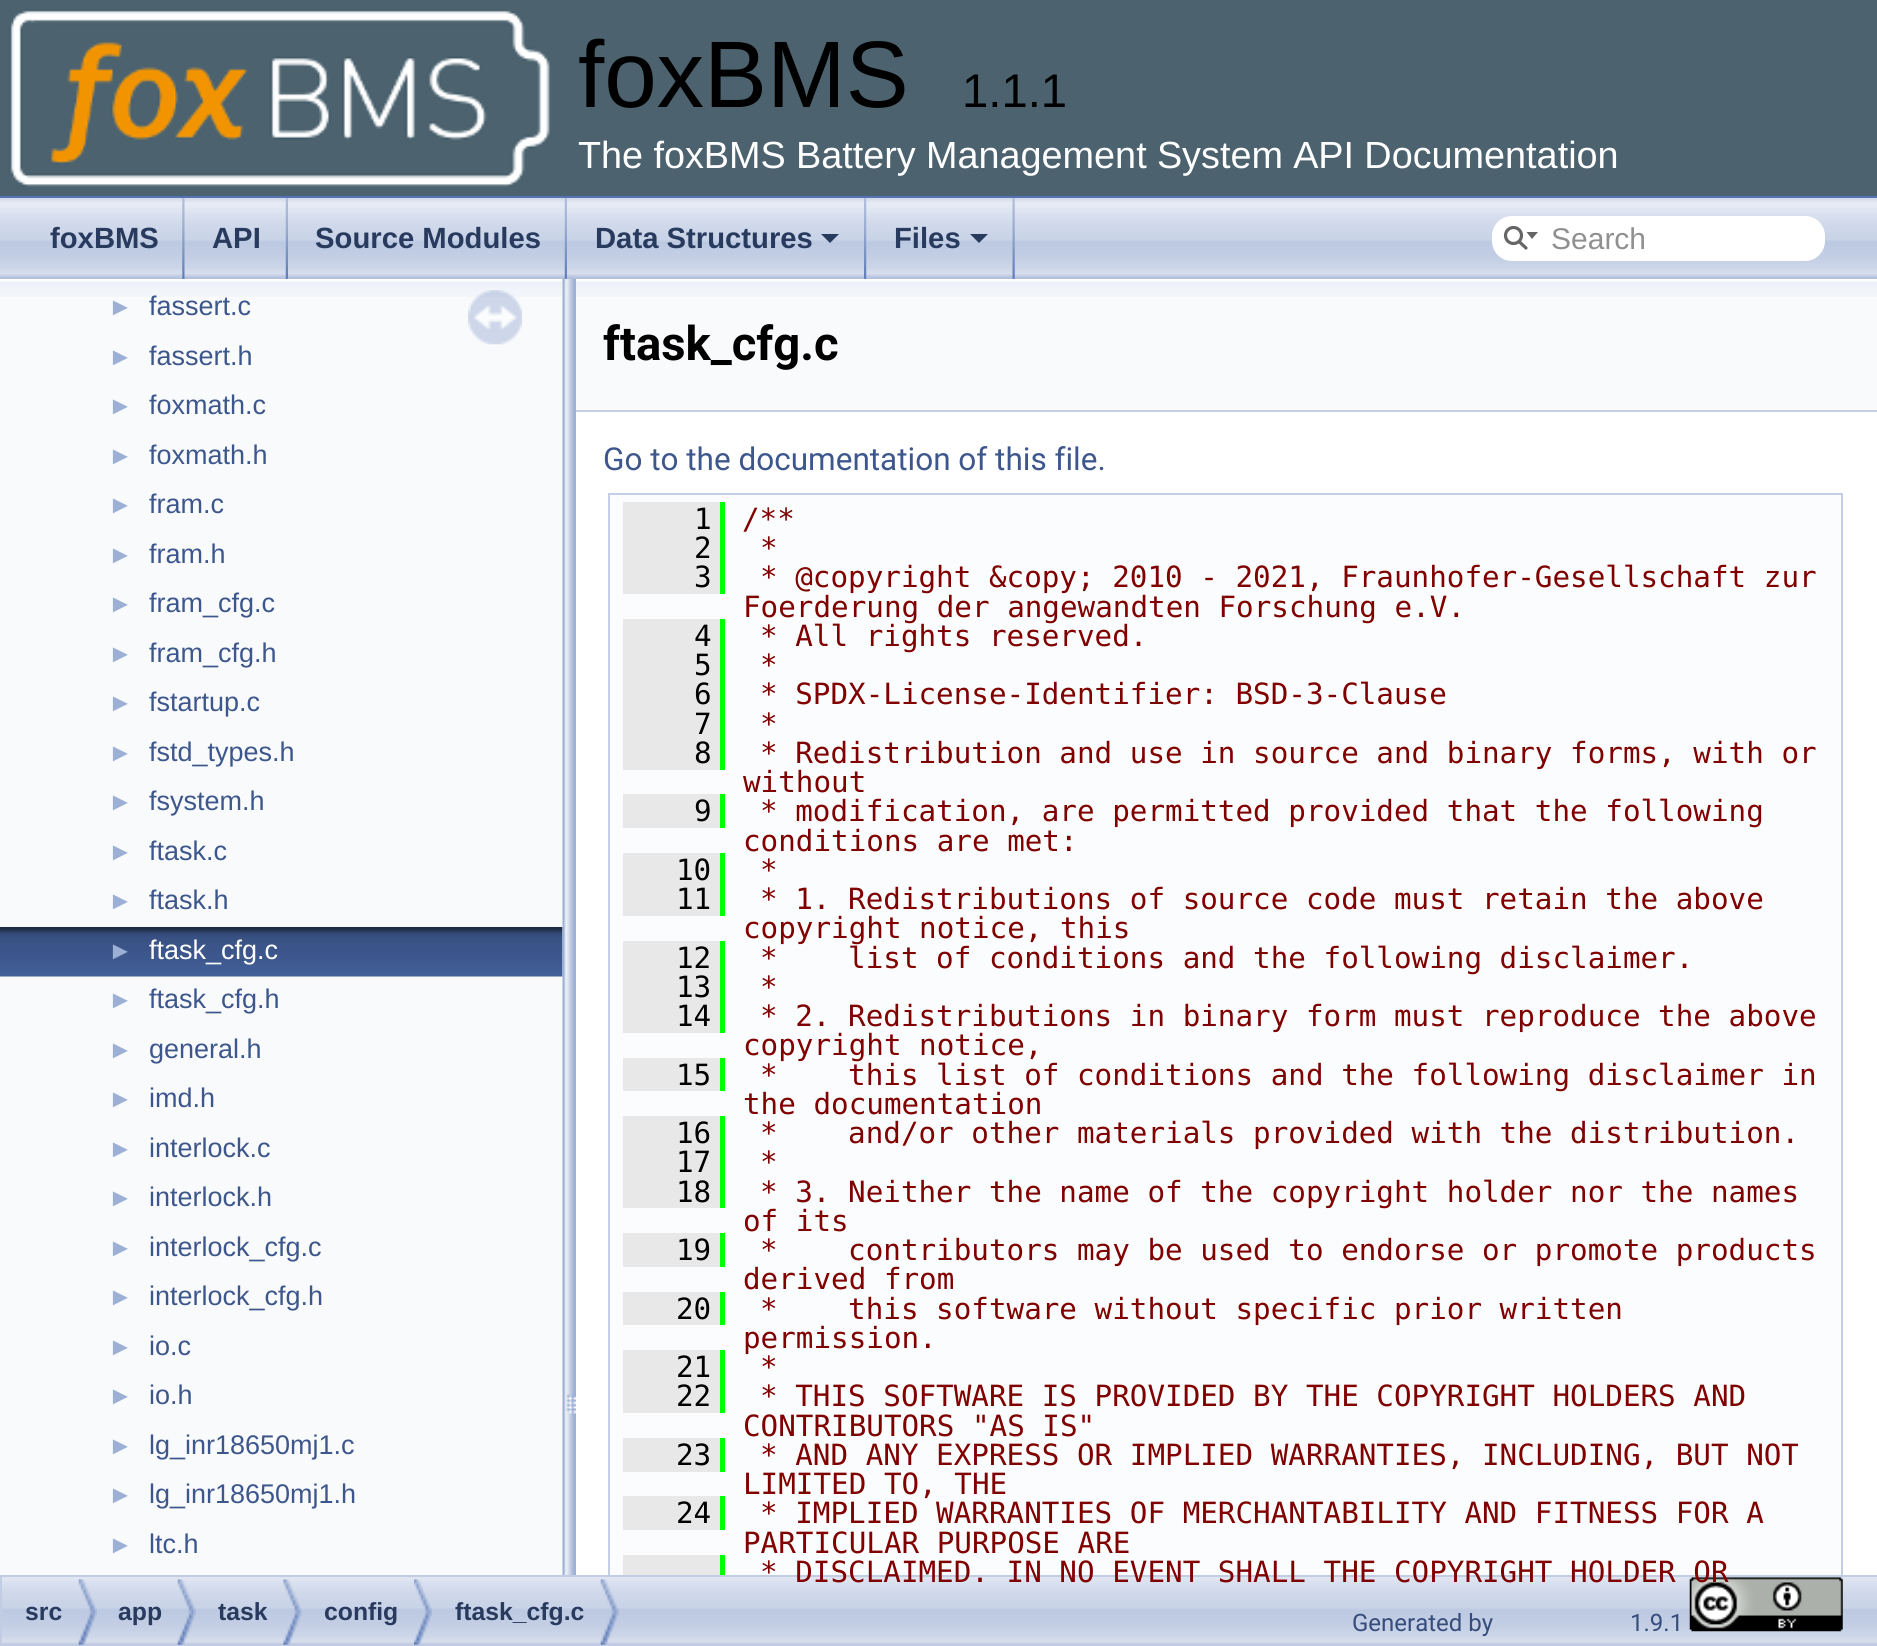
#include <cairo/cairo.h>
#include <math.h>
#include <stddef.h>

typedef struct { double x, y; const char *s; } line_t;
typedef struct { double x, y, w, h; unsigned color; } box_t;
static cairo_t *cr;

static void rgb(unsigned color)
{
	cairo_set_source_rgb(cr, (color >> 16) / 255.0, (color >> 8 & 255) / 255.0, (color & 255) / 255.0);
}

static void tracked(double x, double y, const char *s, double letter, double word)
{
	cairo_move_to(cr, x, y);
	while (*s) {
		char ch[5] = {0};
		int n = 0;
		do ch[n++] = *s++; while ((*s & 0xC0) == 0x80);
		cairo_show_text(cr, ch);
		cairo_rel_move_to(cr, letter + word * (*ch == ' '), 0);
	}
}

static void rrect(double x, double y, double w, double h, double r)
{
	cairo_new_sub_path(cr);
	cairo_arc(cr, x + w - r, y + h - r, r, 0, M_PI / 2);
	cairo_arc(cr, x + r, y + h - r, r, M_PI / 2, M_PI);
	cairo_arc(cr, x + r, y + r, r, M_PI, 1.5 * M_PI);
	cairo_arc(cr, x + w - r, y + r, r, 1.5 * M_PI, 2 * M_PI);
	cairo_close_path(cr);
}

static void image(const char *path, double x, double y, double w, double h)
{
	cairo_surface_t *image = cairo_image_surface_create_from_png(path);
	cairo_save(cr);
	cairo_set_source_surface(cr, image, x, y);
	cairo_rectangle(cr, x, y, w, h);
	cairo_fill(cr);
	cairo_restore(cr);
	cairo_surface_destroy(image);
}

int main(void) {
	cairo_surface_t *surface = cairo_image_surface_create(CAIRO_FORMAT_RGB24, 1877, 1646);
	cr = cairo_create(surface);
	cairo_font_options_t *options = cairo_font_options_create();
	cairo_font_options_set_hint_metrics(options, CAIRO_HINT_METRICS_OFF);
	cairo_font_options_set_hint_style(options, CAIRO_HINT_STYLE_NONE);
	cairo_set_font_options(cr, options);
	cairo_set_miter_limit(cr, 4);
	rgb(0xffffff);
	cairo_paint(cr);
	rgb(0x4c636f);
	cairo_rectangle(cr, 0, 0, 1877, 196);
	cairo_fill(cr);
	rgb(0x5373b4);
	cairo_rectangle(cr, 0, 196, 1877, 2);
	cairo_fill(cr);
	image("img/1.png", 9, 9, 541, 178);
	image("img/2.png", 0, 198, 1877, 81);
	image("img/3.png", 182, 198, 3, 81);
	image("img/4.png", 285, 198, 3, 81);
	image("img/4.png", 564, 198, 3, 81);
	image("img/5.png", 864, 198, 3, 81);
	rgb(0x283a5d);
	cairo_new_path(cr);
	cairo_move_to(cr, 821, 234);
	cairo_line_to(cr, 839, 234);
	cairo_line_to(cr, 830, 243);
	cairo_close_path(cr);
	cairo_fill(cr);
	image("img/6.png", 1012, 198, 3, 81);
	cairo_new_path(cr);
	cairo_move_to(cr, 970, 234);
	cairo_line_to(cr, 988, 234);
	cairo_line_to(cr, 979, 243);
	cairo_close_path(cr);
	cairo_fill(cr);
	rgb(0xffffff);
	rrect(1492, 216, 333, 45, 20);
	cairo_fill(cr);
	cairo_arc(cr, 1513.5, 235.5, 8, 0, 2 * M_PI);
	rgb(0x656565);
	cairo_set_line_width(cr, 3.2);
	cairo_stroke(cr);
	cairo_new_path(cr);
	cairo_move_to(cr, 1526.5, 232);
	cairo_line_to(cr, 1532, 239);
	cairo_line_to(cr, 1538, 232);
	cairo_close_path(cr);
	cairo_fill(cr);
	cairo_new_path(cr);
	cairo_move_to(cr, 1519.5, 242);
	cairo_line_to(cr, 1526, 248);
	cairo_set_line_cap(cr, CAIRO_LINE_CAP_ROUND);
	cairo_stroke(cr);
	rgb(0xf9fafc);
	cairo_rectangle(cr, 0, 279, 563, 1296);
	cairo_fill(cr);
	image("img/7.png", 0, 279, 563, 18);
	image("img/8.png", 0, 927, 563, 50);
	image("img/9.png", 468, 290, 54, 55);
	image("img/10.png", 562, 279, 14, 1296);
	cairo_rectangle(cr, 576, 297, 1301, 113);
	cairo_fill(cr);
	image("img/11.png", 576, 279, 1301, 18);
	rgb(0xc4cfe5);
	cairo_rectangle(cr, 576, 410, 1301, 2);
	cairo_fill(cr);
	rgb(0xfbfcfd);
	cairo_rectangle(cr, 610, 495, 1231, 1080);
	cairo_fill(cr);
	cairo_rectangle(cr, 609, 494, 1233, 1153);
	rgb(0xc4cfe5);
	cairo_set_line_width(cr, 2);
	cairo_set_line_cap(cr, CAIRO_LINE_CAP_BUTT);
	cairo_stroke(cr);
	{
		static const box_t items[] = {
			{623, 502, 97, 92, 0xe8e8e8},
			{720, 502, 5, 92, 0x00ff00},
			{623, 619, 97, 151, 0xe8e8e8},
			{720, 619, 5, 151, 0x00ff00},
			{623, 794, 97, 34, 0xe8e8e8},
			{720, 794, 5, 34, 0x00ff00},
			{623, 853, 97, 63, 0xe8e8e8},
			{720, 853, 5, 63, 0x00ff00},
			{623, 941, 97, 92, 0xe8e8e8},
			{720, 941, 5, 92, 0x00ff00},
			{623, 1058, 97, 33, 0xe8e8e8},
			{720, 1058, 5, 33, 0x00ff00},
			{623, 1116, 97, 92, 0xe8e8e8},
			{720, 1116, 5, 92, 0x00ff00},
			{623, 1233, 97, 34, 0xe8e8e8},
			{720, 1233, 5, 34, 0x00ff00},
			{623, 1292, 97, 33, 0xe8e8e8},
			{720, 1292, 5, 33, 0x00ff00},
			{623, 1350, 97, 63, 0xe8e8e8},
			{720, 1350, 5, 63, 0x00ff00},
			{623, 1438, 97, 34, 0xe8e8e8},
			{720, 1438, 5, 34, 0x00ff00},
			{623, 1496, 97, 34, 0xe8e8e8},
			{720, 1496, 5, 34, 0x00ff00},
			{623, 1555, 97, 20, 0xe8e8e8},
			{720, 1555, 5, 20, 0x00ff00},
		};
		for (size_t i = 0; i < sizeof items / sizeof *items; i++) {
			rgb(items[i].color);
			cairo_rectangle(cr, items[i].x, items[i].y, items[i].w, items[i].h);
			cairo_fill(cr);
		}
	}
	image("img/12.png", 2, 1577, 1875, 68);
	cairo_rectangle(cr, 1, 1576, 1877, 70);
	rgb(0xc2cde4);
	cairo_stroke(cr);
	image("img/13.png", 78, 1579, 19, 66);
	image("img/14.png", 177, 1579, 19, 66);
	image("img/15.png", 283, 1579, 19, 66);
	image("img/16.png", 414, 1579, 18, 66);
	image("img/14.png", 600, 1579, 19, 66);
	image("img/17.png", 1689, 1577, 154, 55);
	cairo_select_font_face(cr, "Liberation Sans", CAIRO_FONT_SLANT_NORMAL, CAIRO_FONT_WEIGHT_NORMAL);
	cairo_set_font_size(cr, 94.5);
	rgb(0x000000);
	cairo_move_to(cr, 578, 107);
	cairo_show_text(cr, "foxBMS");
	cairo_set_font_size(cr, 47.25);
	cairo_move_to(cr, 962, 107);
	cairo_show_text(cr, "1.1.1");
	cairo_set_font_size(cr, 37.8);
	rgb(0xffffff);
	tracked(578, 168, "The foxBMS Battery Management System API Documentation", 0, -0.25);
	cairo_select_font_face(cr, "Liberation Sans", CAIRO_FONT_SLANT_NORMAL, CAIRO_FONT_WEIGHT_BOLD);
	cairo_set_font_size(cr, 29.25);
	rgb(0x283a5d);
	{
		static const line_t items[] = {
			{50, 248, "foxBMS"},
			{212, 248, "API"},
			{315, 248, "Source Modules"},
			{595, 248, "Data Structures"},
			{894, 248, "Files"},
		};
		for (size_t i = 0; i < sizeof items / sizeof *items; i++) {
			cairo_move_to(cr, items[i].x, items[i].y);
			cairo_show_text(cr, items[i].s);
		}
	}
	cairo_select_font_face(cr, "Liberation Sans", CAIRO_FONT_SLANT_NORMAL, CAIRO_FONT_WEIGHT_NORMAL);
	cairo_set_font_size(cr, 30);
	rgb(0x909090);
	cairo_move_to(cr, 1551, 249);
	cairo_show_text(cr, "Search");
	cairo_set_font_size(cr, 25);
	rgb(0x9cafd4);
	cairo_move_to(cr, 108, 315);
	cairo_show_text(cr, "►");
	cairo_set_font_size(cr, 27);
	rgb(0x3d578c);
	cairo_move_to(cr, 149, 315);
	cairo_show_text(cr, "fassert.c");
	cairo_set_font_size(cr, 25);
	rgb(0x9cafd4);
	cairo_move_to(cr, 108, 365);
	cairo_show_text(cr, "►");
	cairo_set_font_size(cr, 27);
	rgb(0x3d578c);
	cairo_move_to(cr, 149, 365);
	cairo_show_text(cr, "fassert.h");
	cairo_set_font_size(cr, 25);
	rgb(0x9cafd4);
	cairo_move_to(cr, 108, 414);
	cairo_show_text(cr, "►");
	cairo_set_font_size(cr, 27);
	rgb(0x3d578c);
	cairo_move_to(cr, 149, 414);
	cairo_show_text(cr, "foxmath.c");
	cairo_set_font_size(cr, 25);
	rgb(0x9cafd4);
	cairo_move_to(cr, 108, 464);
	cairo_show_text(cr, "►");
	cairo_set_font_size(cr, 27);
	rgb(0x3d578c);
	cairo_move_to(cr, 149, 464);
	cairo_show_text(cr, "foxmath.h");
	cairo_set_font_size(cr, 25);
	rgb(0x9cafd4);
	cairo_move_to(cr, 108, 513);
	cairo_show_text(cr, "►");
	cairo_set_font_size(cr, 27);
	rgb(0x3d578c);
	cairo_move_to(cr, 149, 513);
	cairo_show_text(cr, "fram.c");
	cairo_set_font_size(cr, 25);
	rgb(0x9cafd4);
	cairo_move_to(cr, 108, 563);
	cairo_show_text(cr, "►");
	cairo_set_font_size(cr, 27);
	rgb(0x3d578c);
	cairo_move_to(cr, 149, 563);
	cairo_show_text(cr, "fram.h");
	cairo_set_font_size(cr, 25);
	rgb(0x9cafd4);
	cairo_move_to(cr, 108, 612);
	cairo_show_text(cr, "►");
	cairo_set_font_size(cr, 27);
	rgb(0x3d578c);
	cairo_move_to(cr, 149, 612);
	cairo_show_text(cr, "fram_cfg.c");
	cairo_set_font_size(cr, 25);
	rgb(0x9cafd4);
	cairo_move_to(cr, 108, 662);
	cairo_show_text(cr, "►");
	cairo_set_font_size(cr, 27);
	rgb(0x3d578c);
	cairo_move_to(cr, 149, 662);
	cairo_show_text(cr, "fram_cfg.h");
	cairo_set_font_size(cr, 25);
	rgb(0x9cafd4);
	cairo_move_to(cr, 108, 711);
	cairo_show_text(cr, "►");
	cairo_set_font_size(cr, 27);
	rgb(0x3d578c);
	cairo_move_to(cr, 149, 711);
	cairo_show_text(cr, "fstartup.c");
	cairo_set_font_size(cr, 25);
	rgb(0x9cafd4);
	cairo_move_to(cr, 108, 761);
	cairo_show_text(cr, "►");
	cairo_set_font_size(cr, 27);
	rgb(0x3d578c);
	cairo_move_to(cr, 149, 761);
	cairo_show_text(cr, "fstd_types.h");
	cairo_set_font_size(cr, 25);
	rgb(0x9cafd4);
	cairo_move_to(cr, 108, 810);
	cairo_show_text(cr, "►");
	cairo_set_font_size(cr, 27);
	rgb(0x3d578c);
	cairo_move_to(cr, 149, 810);
	cairo_show_text(cr, "fsystem.h");
	cairo_set_font_size(cr, 25);
	rgb(0x9cafd4);
	cairo_move_to(cr, 108, 860);
	cairo_show_text(cr, "►");
	cairo_set_font_size(cr, 27);
	rgb(0x3d578c);
	cairo_move_to(cr, 149, 860);
	cairo_show_text(cr, "ftask.c");
	cairo_set_font_size(cr, 25);
	rgb(0x9cafd4);
	cairo_move_to(cr, 108, 909);
	cairo_show_text(cr, "►");
	cairo_set_font_size(cr, 27);
	rgb(0x3d578c);
	cairo_move_to(cr, 149, 909);
	cairo_show_text(cr, "ftask.h");
	cairo_set_font_size(cr, 25);
	rgb(0x9cafd4);
	cairo_move_to(cr, 108, 959);
	cairo_show_text(cr, "►");
	cairo_set_font_size(cr, 27);
	rgb(0xffffff);
	cairo_move_to(cr, 149, 959);
	cairo_show_text(cr, "ftask_cfg.c");
	cairo_set_font_size(cr, 25);
	rgb(0x9cafd4);
	cairo_move_to(cr, 108, 1008);
	cairo_show_text(cr, "►");
	cairo_set_font_size(cr, 27);
	rgb(0x3d578c);
	cairo_move_to(cr, 149, 1008);
	cairo_show_text(cr, "ftask_cfg.h");
	cairo_set_font_size(cr, 25);
	rgb(0x9cafd4);
	cairo_move_to(cr, 108, 1058);
	cairo_show_text(cr, "►");
	cairo_set_font_size(cr, 27);
	rgb(0x3d578c);
	cairo_move_to(cr, 149, 1058);
	cairo_show_text(cr, "general.h");
	cairo_set_font_size(cr, 25);
	rgb(0x9cafd4);
	cairo_move_to(cr, 108, 1107);
	cairo_show_text(cr, "►");
	cairo_set_font_size(cr, 27);
	rgb(0x3d578c);
	cairo_move_to(cr, 149, 1107);
	cairo_show_text(cr, "imd.h");
	cairo_set_font_size(cr, 25);
	rgb(0x9cafd4);
	cairo_move_to(cr, 108, 1157);
	cairo_show_text(cr, "►");
	cairo_set_font_size(cr, 27);
	rgb(0x3d578c);
	cairo_move_to(cr, 149, 1157);
	cairo_show_text(cr, "interlock.c");
	cairo_set_font_size(cr, 25);
	rgb(0x9cafd4);
	cairo_move_to(cr, 108, 1206);
	cairo_show_text(cr, "►");
	cairo_set_font_size(cr, 27);
	rgb(0x3d578c);
	cairo_move_to(cr, 149, 1206);
	cairo_show_text(cr, "interlock.h");
	cairo_set_font_size(cr, 25);
	rgb(0x9cafd4);
	cairo_move_to(cr, 108, 1256);
	cairo_show_text(cr, "►");
	cairo_set_font_size(cr, 27);
	rgb(0x3d578c);
	cairo_move_to(cr, 149, 1256);
	cairo_show_text(cr, "interlock_cfg.c");
	cairo_set_font_size(cr, 25);
	rgb(0x9cafd4);
	cairo_move_to(cr, 108, 1305);
	cairo_show_text(cr, "►");
	cairo_set_font_size(cr, 27);
	rgb(0x3d578c);
	cairo_move_to(cr, 149, 1305);
	cairo_show_text(cr, "interlock_cfg.h");
	cairo_set_font_size(cr, 25);
	rgb(0x9cafd4);
	cairo_move_to(cr, 108, 1355);
	cairo_show_text(cr, "►");
	cairo_set_font_size(cr, 27);
	rgb(0x3d578c);
	cairo_move_to(cr, 149, 1355);
	cairo_show_text(cr, "io.c");
	cairo_set_font_size(cr, 25);
	rgb(0x9cafd4);
	cairo_move_to(cr, 108, 1404);
	cairo_show_text(cr, "►");
	cairo_set_font_size(cr, 27);
	rgb(0x3d578c);
	cairo_move_to(cr, 149, 1404);
	cairo_show_text(cr, "io.h");
	cairo_set_font_size(cr, 25);
	rgb(0x9cafd4);
	cairo_move_to(cr, 108, 1454);
	cairo_show_text(cr, "►");
	cairo_set_font_size(cr, 27);
	rgb(0x3d578c);
	cairo_move_to(cr, 149, 1454);
	cairo_show_text(cr, "lg_inr18650mj1.c");
	cairo_set_font_size(cr, 25);
	rgb(0x9cafd4);
	cairo_move_to(cr, 108, 1503);
	cairo_show_text(cr, "►");
	cairo_set_font_size(cr, 27);
	rgb(0x3d578c);
	cairo_move_to(cr, 149, 1503);
	cairo_show_text(cr, "lg_inr18650mj1.h");
	cairo_set_font_size(cr, 25);
	rgb(0x9cafd4);
	cairo_move_to(cr, 108, 1553);
	cairo_show_text(cr, "►");
	cairo_set_font_size(cr, 27);
	rgb(0x3d578c);
	cairo_move_to(cr, 149, 1553);
	cairo_show_text(cr, "ltc.h");
	cairo_select_font_face(cr, "Roboto", CAIRO_FONT_SLANT_NORMAL, CAIRO_FONT_WEIGHT_BOLD);
	cairo_set_font_size(cr, 47.25);
	rgb(0x000000);
	cairo_move_to(cr, 603, 360);
	cairo_show_text(cr, "ftask_cfg.c");
	cairo_select_font_face(cr, "Roboto", CAIRO_FONT_SLANT_NORMAL, CAIRO_FONT_WEIGHT_NORMAL);
	cairo_set_font_size(cr, 31.5);
	rgb(0x3d578c);
	cairo_move_to(cr, 603, 470);
	cairo_show_text(cr, "Go to the documentation of this file.");
	cairo_select_font_face(cr, "DejaVu Sans Mono", CAIRO_FONT_SLANT_NORMAL, CAIRO_FONT_WEIGHT_NORMAL);
	cairo_set_font_size(cr, 29.25);
	rgb(0x000000);
	cairo_move_to(cr, 694, 529);
	cairo_show_text(cr, "1");
	rgb(0x800000);
	cairo_move_to(cr, 742, 529);
	cairo_show_text(cr, "/**");
	rgb(0x000000);
	cairo_move_to(cr, 694, 558);
	cairo_show_text(cr, "2");
	rgb(0x800000);
	cairo_move_to(cr, 760, 558);
	cairo_show_text(cr, "*");
	rgb(0x000000);
	cairo_move_to(cr, 694, 587);
	cairo_show_text(cr, "3");
	rgb(0x800000);
	cairo_move_to(cr, 760, 587);
	cairo_show_text(cr, "* @copyright &copy; 2010 - 2021, Fraunhofer-Gesellschaft zur");
	cairo_move_to(cr, 743, 617);
	cairo_show_text(cr, "Foerderung der angewandten Forschung e.V.");
	rgb(0x000000);
	cairo_move_to(cr, 694, 646);
	cairo_show_text(cr, "4");
	rgb(0x800000);
	cairo_move_to(cr, 760, 646);
	cairo_show_text(cr, "* All rights reserved.");
	rgb(0x000000);
	cairo_move_to(cr, 694, 675);
	cairo_show_text(cr, "5");
	rgb(0x800000);
	cairo_move_to(cr, 760, 675);
	cairo_show_text(cr, "*");
	rgb(0x000000);
	cairo_move_to(cr, 694, 704);
	cairo_show_text(cr, "6");
	rgb(0x800000);
	cairo_move_to(cr, 760, 704);
	cairo_show_text(cr, "* SPDX-License-Identifier: BSD-3-Clause");
	rgb(0x000000);
	cairo_move_to(cr, 694, 734);
	cairo_show_text(cr, "7");
	rgb(0x800000);
	cairo_move_to(cr, 760, 734);
	cairo_show_text(cr, "*");
	rgb(0x000000);
	cairo_move_to(cr, 694, 763);
	cairo_show_text(cr, "8");
	rgb(0x800000);
	cairo_move_to(cr, 760, 763);
	cairo_show_text(cr, "* Redistribution and use in source and binary forms, with or");
	cairo_move_to(cr, 743, 792);
	cairo_show_text(cr, "without");
	rgb(0x000000);
	cairo_move_to(cr, 694, 821);
	cairo_show_text(cr, "9");
	rgb(0x800000);
	cairo_move_to(cr, 760, 821);
	cairo_show_text(cr, "* modification, are permitted provided that the following");
	cairo_move_to(cr, 743, 851);
	cairo_show_text(cr, "conditions are met:");
	rgb(0x000000);
	cairo_move_to(cr, 676, 880);
	cairo_show_text(cr, "10");
	rgb(0x800000);
	cairo_move_to(cr, 760, 880);
	cairo_show_text(cr, "*");
	rgb(0x000000);
	cairo_move_to(cr, 676, 909);
	cairo_show_text(cr, "11");
	rgb(0x800000);
	cairo_move_to(cr, 760, 909);
	cairo_show_text(cr, "* 1. Redistributions of source code must retain the above");
	cairo_move_to(cr, 743, 938);
	cairo_show_text(cr, "copyright notice, this");
	rgb(0x000000);
	cairo_move_to(cr, 676, 968);
	cairo_show_text(cr, "12");
	rgb(0x800000);
	cairo_move_to(cr, 760, 968);
	cairo_show_text(cr, "*    list of conditions and the following disclaimer.");
	rgb(0x000000);
	cairo_move_to(cr, 676, 997);
	cairo_show_text(cr, "13");
	rgb(0x800000);
	cairo_move_to(cr, 760, 997);
	cairo_show_text(cr, "*");
	rgb(0x000000);
	cairo_move_to(cr, 676, 1026);
	cairo_show_text(cr, "14");
	rgb(0x800000);
	cairo_move_to(cr, 760, 1026);
	cairo_show_text(cr, "* 2. Redistributions in binary form must reproduce the above");
	cairo_move_to(cr, 743, 1055);
	cairo_show_text(cr, "copyright notice,");
	rgb(0x000000);
	cairo_move_to(cr, 676, 1085);
	cairo_show_text(cr, "15");
	rgb(0x800000);
	cairo_move_to(cr, 760, 1085);
	cairo_show_text(cr, "*    this list of conditions and the following disclaimer in");
	cairo_move_to(cr, 743, 1114);
	cairo_show_text(cr, "the documentation");
	rgb(0x000000);
	cairo_move_to(cr, 676, 1143);
	cairo_show_text(cr, "16");
	rgb(0x800000);
	cairo_move_to(cr, 760, 1143);
	cairo_show_text(cr, "*    and/or other materials provided with the distribution.");
	rgb(0x000000);
	cairo_move_to(cr, 676, 1172);
	cairo_show_text(cr, "17");
	rgb(0x800000);
	cairo_move_to(cr, 760, 1172);
	cairo_show_text(cr, "*");
	rgb(0x000000);
	cairo_move_to(cr, 676, 1202);
	cairo_show_text(cr, "18");
	rgb(0x800000);
	cairo_move_to(cr, 760, 1202);
	cairo_show_text(cr, "* 3. Neither the name of the copyright holder nor the names");
	cairo_move_to(cr, 743, 1231);
	cairo_show_text(cr, "of its");
	rgb(0x000000);
	cairo_move_to(cr, 676, 1260);
	cairo_show_text(cr, "19");
	rgb(0x800000);
	cairo_move_to(cr, 760, 1260);
	cairo_show_text(cr, "*    contributors may be used to endorse or promote products");
	cairo_move_to(cr, 743, 1289);
	cairo_show_text(cr, "derived from");
	rgb(0x000000);
	cairo_move_to(cr, 676, 1319);
	cairo_show_text(cr, "20");
	rgb(0x800000);
	cairo_move_to(cr, 760, 1319);
	cairo_show_text(cr, "*    this software without specific prior written");
	cairo_move_to(cr, 743, 1348);
	cairo_show_text(cr, "permission.");
	rgb(0x000000);
	cairo_move_to(cr, 676, 1377);
	cairo_show_text(cr, "21");
	rgb(0x800000);
	cairo_move_to(cr, 760, 1377);
	cairo_show_text(cr, "*");
	rgb(0x000000);
	cairo_move_to(cr, 676, 1406);
	cairo_show_text(cr, "22");
	rgb(0x800000);
	cairo_move_to(cr, 760, 1406);
	cairo_show_text(cr, "* THIS SOFTWARE IS PROVIDED BY THE COPYRIGHT HOLDERS AND");
	cairo_move_to(cr, 743, 1436);
	cairo_show_text(cr, "CONTRIBUTORS \"AS IS\"");
	rgb(0x000000);
	cairo_move_to(cr, 676, 1465);
	cairo_show_text(cr, "23");
	rgb(0x800000);
	cairo_move_to(cr, 760, 1465);
	cairo_show_text(cr, "* AND ANY EXPRESS OR IMPLIED WARRANTIES, INCLUDING, BUT NOT");
	cairo_move_to(cr, 743, 1494);
	cairo_show_text(cr, "LIMITED TO, THE");
	rgb(0x000000);
	cairo_move_to(cr, 676, 1523);
	cairo_show_text(cr, "24");
	rgb(0x800000);
	{
		static const line_t items[] = {
			{760, 1523, "* IMPLIED WARRANTIES OF MERCHANTABILITY AND FITNESS FOR A"},
			{743, 1553, "PARTICULAR PURPOSE ARE"},
			{760, 1582, "* DISCLAIMED. IN NO EVENT SHALL THE COPYRIGHT HOLDER OR"},
		};
		for (size_t i = 0; i < sizeof items / sizeof *items; i++) {
			cairo_move_to(cr, items[i].x, items[i].y);
			cairo_show_text(cr, items[i].s);
		}
	}
	cairo_select_font_face(cr, "Liberation Sans", CAIRO_FONT_SLANT_NORMAL, CAIRO_FONT_WEIGHT_BOLD);
	cairo_set_font_size(cr, 24.75);
	rgb(0x283a5d);
	{
		static const line_t items[] = {
			{25, 1620, "src"},
			{118, 1620, "app"},
			{218, 1620, "task"},
			{324, 1620, "config"},
			{455, 1620, "ftask_cfg.c"},
		};
		for (size_t i = 0; i < sizeof items / sizeof *items; i++) {
			cairo_move_to(cr, items[i].x, items[i].y);
			cairo_show_text(cr, items[i].s);
		}
	}
	cairo_select_font_face(cr, "Roboto", CAIRO_FONT_SLANT_NORMAL, CAIRO_FONT_WEIGHT_NORMAL);
	cairo_set_font_size(cr, 24);
	rgb(0x364d7c);
	cairo_move_to(cr, 1352, 1631);
	cairo_show_text(cr, "Generated by");
	cairo_move_to(cr, 1630, 1631);
	cairo_show_text(cr, "1.9.1");
	cairo_surface_write_to_png(surface, "page.png");
	cairo_font_options_destroy(options);
	cairo_destroy(cr);
	cairo_surface_destroy(surface);
	return 0;
}
